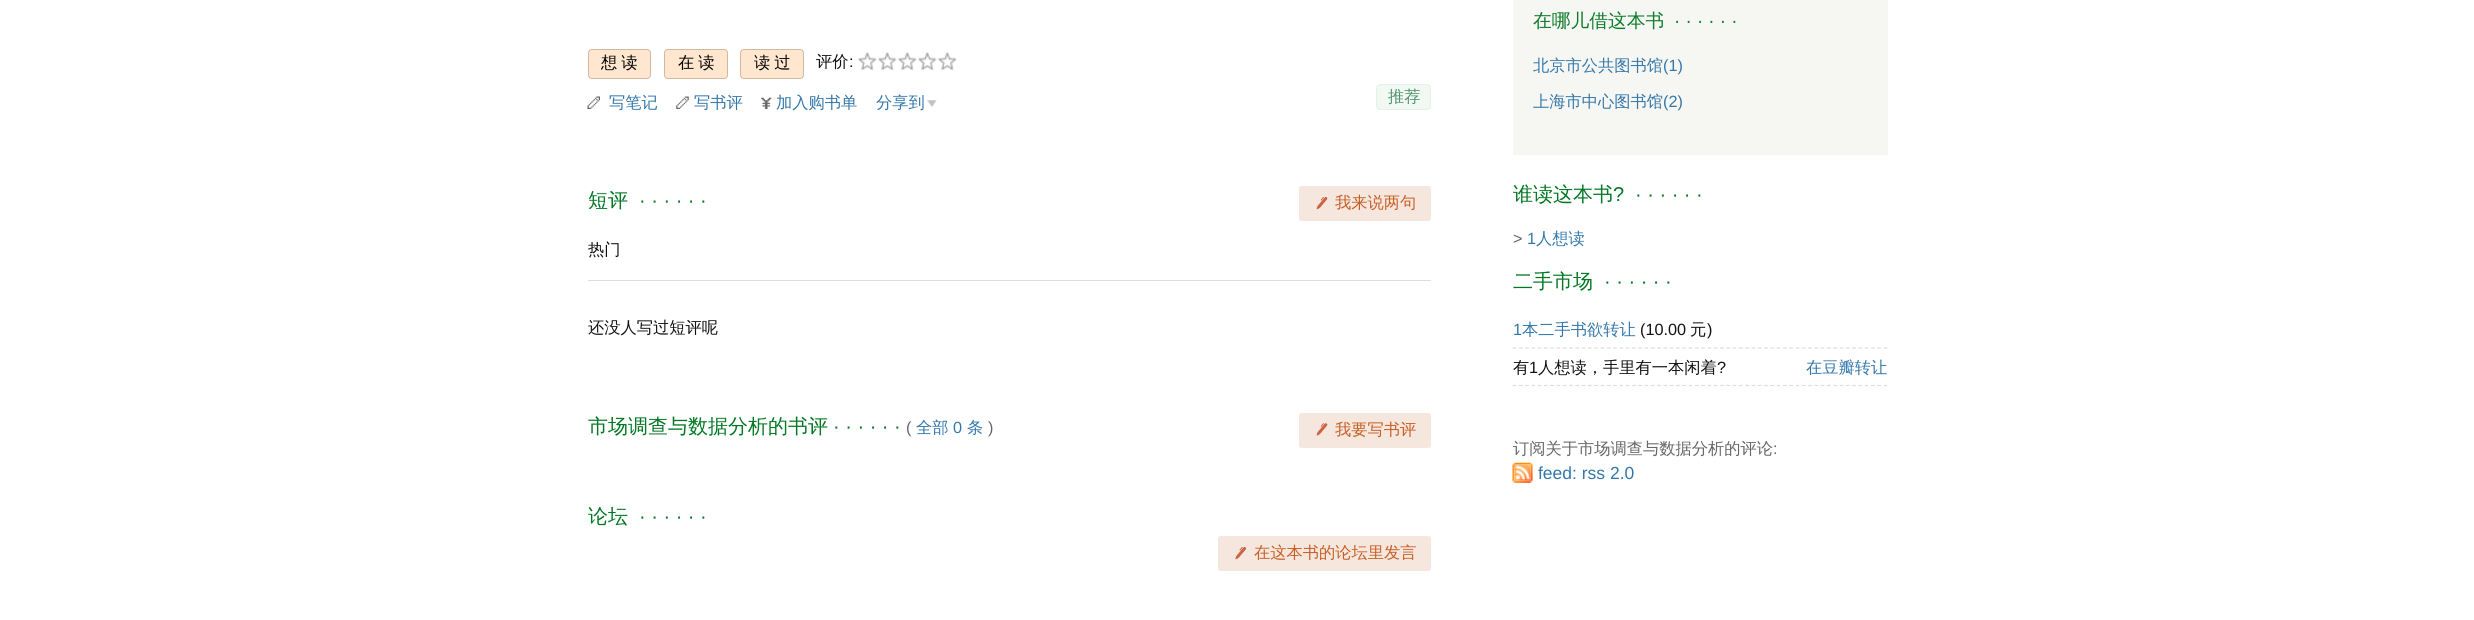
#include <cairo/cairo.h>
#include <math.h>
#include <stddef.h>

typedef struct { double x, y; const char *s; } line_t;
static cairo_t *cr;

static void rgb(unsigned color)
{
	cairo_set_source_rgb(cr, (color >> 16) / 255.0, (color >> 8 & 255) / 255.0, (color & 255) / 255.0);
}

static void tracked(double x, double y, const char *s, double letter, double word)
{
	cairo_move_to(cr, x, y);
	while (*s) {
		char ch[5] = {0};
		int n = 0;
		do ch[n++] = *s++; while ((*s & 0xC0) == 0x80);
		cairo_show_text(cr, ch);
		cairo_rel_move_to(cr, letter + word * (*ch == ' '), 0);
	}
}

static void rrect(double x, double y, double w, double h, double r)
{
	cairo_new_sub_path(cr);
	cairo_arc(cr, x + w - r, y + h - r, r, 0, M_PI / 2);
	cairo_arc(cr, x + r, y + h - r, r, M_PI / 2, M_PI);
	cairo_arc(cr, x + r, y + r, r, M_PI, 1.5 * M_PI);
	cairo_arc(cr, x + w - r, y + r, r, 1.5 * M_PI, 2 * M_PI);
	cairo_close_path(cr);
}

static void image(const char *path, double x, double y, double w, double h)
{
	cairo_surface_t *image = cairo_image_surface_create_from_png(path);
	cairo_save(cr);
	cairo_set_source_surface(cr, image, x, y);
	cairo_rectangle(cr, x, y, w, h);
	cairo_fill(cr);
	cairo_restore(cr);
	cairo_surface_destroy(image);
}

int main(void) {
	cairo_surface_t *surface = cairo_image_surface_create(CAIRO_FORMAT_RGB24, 2474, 620);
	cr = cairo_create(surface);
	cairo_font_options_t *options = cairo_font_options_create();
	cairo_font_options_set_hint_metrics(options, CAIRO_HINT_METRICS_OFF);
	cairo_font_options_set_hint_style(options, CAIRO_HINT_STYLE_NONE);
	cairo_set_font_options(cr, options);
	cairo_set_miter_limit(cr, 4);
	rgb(0xffffff);
	cairo_paint(cr);
	rgb(0xffe6ce);
	rrect(588.5, 49.5, 62, 29, 3.5);
	cairo_fill_preserve(cr);
	rgb(0xd6b79d);
	cairo_set_line_width(cr, 1);
	cairo_stroke(cr);
	rgb(0xffe6ce);
	rrect(664.5, 49.5, 63, 29, 3.5);
	cairo_fill_preserve(cr);
	rgb(0xd6b79d);
	cairo_stroke(cr);
	rgb(0xffe6ce);
	rrect(740.5, 49.5, 63, 29, 3.5);
	cairo_fill_preserve(cr);
	rgb(0xd6b79d);
	cairo_stroke(cr);
	image("img/1.png", 858, 52, 19, 19);
	image("img/1.png", 878, 52, 19, 19);
	image("img/1.png", 898, 52, 19, 19);
	image("img/1.png", 918, 52, 19, 19);
	image("img/2.png", 938, 52, 19, 19);
	image("img/3.png", 587, 96, 13, 13);
	image("img/4.png", 676, 96, 13, 13);
	image("img/5.png", 761, 97, 11, 12);
	image("img/6.png", 927, 100, 10, 7);
	rgb(0xf2f8f2);
	rrect(1376.5, 84.5, 54, 25, 3.5);
	cairo_fill_preserve(cr);
	rgb(0xe3f1ed);
	cairo_stroke(cr);
	rgb(0xf6e7de);
	rrect(1299, 186, 132, 35, 2.5);
	cairo_fill(cr);
	image("img/7.png", 1316, 197, 12, 13);
	rgb(0xdddddd);
	rrect(588, 280, 843, 1, 0.5);
	cairo_fill(cr);
	rgb(0xf6e7de);
	rrect(1299, 413, 132, 35, 2.5);
	cairo_fill(cr);
	image("img/8.png", 1316, 423, 12, 13);
	rrect(1218, 536, 213, 35, 2.5);
	cairo_fill(cr);
	image("img/9.png", 1235, 547, 12, 13);
	rgb(0xf6f6f2);
	cairo_rectangle(cr, 1513, 0, 375, 155);
	cairo_fill(cr);
	cairo_new_path(cr);
	cairo_move_to(cr, 1512.5, 348);
	cairo_line_to(cr, 1887.5, 348);
	rgb(0xdddddd);
	cairo_set_line_width(cr, 1.2);
	cairo_set_dash(cr, (double[]){3.75, 2.54}, 2, 0);
	cairo_stroke(cr);
	cairo_new_path(cr);
	cairo_move_to(cr, 1512.5, 385.5);
	cairo_line_to(cr, 1887.5, 385.5);
	cairo_stroke(cr);
	image("img/10.png", 1512, 462, 21, 21);
	cairo_select_font_face(cr, "WenQuanYi Zen Hei Medium", CAIRO_FONT_SLANT_NORMAL, CAIRO_FONT_WEIGHT_NORMAL);
	cairo_set_font_size(cr, 16.25);
	rgb(0x000000);
	{
		static const line_t items[] = {
			{601, 68, "想读"},
			{678, 68, "在读"},
			{754, 68, "读过"},
		};
		for (size_t i = 0; i < sizeof items / sizeof *items; i++) {
			tracked(items[i].x, items[i].y, items[i].s, 4, 0);
		}
	}
	rgb(0x111111);
	cairo_move_to(cr, 816, 67);
	cairo_show_text(cr, "评价");
	cairo_select_font_face(cr, "Liberation Sans", CAIRO_FONT_SLANT_NORMAL, CAIRO_FONT_WEIGHT_NORMAL);
	cairo_move_to(cr, 849, 67);
	cairo_show_text(cr, ":");
	cairo_select_font_face(cr, "WenQuanYi Zen Hei Medium", CAIRO_FONT_SLANT_NORMAL, CAIRO_FONT_WEIGHT_NORMAL);
	rgb(0x3377aa);
	{
		static const line_t items[] = {
			{609, 108, "写笔记"},
			{694, 108, "写书评"},
			{776, 108, "加入购书单"},
			{876, 108, "分享到"},
		};
		for (size_t i = 0; i < sizeof items / sizeof *items; i++) {
			cairo_move_to(cr, items[i].x, items[i].y);
			cairo_show_text(cr, items[i].s);
		}
	}
	rgb(0x4f946e);
	cairo_move_to(cr, 1388, 102);
	cairo_show_text(cr, "推荐");
	cairo_set_font_size(cr, 20);
	rgb(0x007722);
	cairo_move_to(cr, 588, 207);
	cairo_show_text(cr, "短评");
	cairo_select_font_face(cr, "Liberation Sans", CAIRO_FONT_SLANT_NORMAL, CAIRO_FONT_WEIGHT_NORMAL);
	cairo_move_to(cr, 639, 207);
	cairo_show_text(cr, "· · · · · ·");
	cairo_select_font_face(cr, "WenQuanYi Zen Hei Medium", CAIRO_FONT_SLANT_NORMAL, CAIRO_FONT_WEIGHT_NORMAL);
	cairo_set_font_size(cr, 16.25);
	rgb(0xc65e24);
	cairo_move_to(cr, 1335, 208);
	cairo_show_text(cr, "我来说两句");
	rgb(0x111111);
	cairo_move_to(cr, 588, 255);
	cairo_show_text(cr, "热门");
	cairo_move_to(cr, 588, 333);
	cairo_show_text(cr, "还没人写过短评呢");
	cairo_set_font_size(cr, 20);
	rgb(0x007722);
	cairo_move_to(cr, 588, 433);
	cairo_show_text(cr, "市场调查与数据分析的书评");
	cairo_select_font_face(cr, "Liberation Sans", CAIRO_FONT_SLANT_NORMAL, CAIRO_FONT_WEIGHT_NORMAL);
	cairo_move_to(cr, 833, 433);
	cairo_show_text(cr, "· · · · · ·");
	cairo_set_font_size(cr, 16.25);
	rgb(0x666666);
	cairo_move_to(cr, 906, 433);
	cairo_show_text(cr, "(");
	cairo_select_font_face(cr, "WenQuanYi Zen Hei Medium", CAIRO_FONT_SLANT_NORMAL, CAIRO_FONT_WEIGHT_NORMAL);
	rgb(0x3377aa);
	cairo_move_to(cr, 916, 433);
	cairo_show_text(cr, "全部");
	cairo_select_font_face(cr, "Liberation Sans", CAIRO_FONT_SLANT_NORMAL, CAIRO_FONT_WEIGHT_NORMAL);
	cairo_move_to(cr, 953, 433);
	cairo_show_text(cr, "0");
	cairo_select_font_face(cr, "WenQuanYi Zen Hei Medium", CAIRO_FONT_SLANT_NORMAL, CAIRO_FONT_WEIGHT_NORMAL);
	cairo_move_to(cr, 967, 433);
	cairo_show_text(cr, "条");
	cairo_select_font_face(cr, "Liberation Sans", CAIRO_FONT_SLANT_NORMAL, CAIRO_FONT_WEIGHT_NORMAL);
	rgb(0x666666);
	cairo_move_to(cr, 988, 433);
	cairo_show_text(cr, ")");
	cairo_select_font_face(cr, "WenQuanYi Zen Hei Medium", CAIRO_FONT_SLANT_NORMAL, CAIRO_FONT_WEIGHT_NORMAL);
	rgb(0xc65e24);
	cairo_move_to(cr, 1335, 435);
	cairo_show_text(cr, "我要写书评");
	cairo_set_font_size(cr, 20);
	rgb(0x007722);
	cairo_move_to(cr, 588, 523);
	cairo_show_text(cr, "论坛");
	cairo_select_font_face(cr, "Liberation Sans", CAIRO_FONT_SLANT_NORMAL, CAIRO_FONT_WEIGHT_NORMAL);
	cairo_move_to(cr, 639, 523);
	cairo_show_text(cr, "· · · · · ·");
	cairo_select_font_face(cr, "WenQuanYi Zen Hei Medium", CAIRO_FONT_SLANT_NORMAL, CAIRO_FONT_WEIGHT_NORMAL);
	cairo_set_font_size(cr, 16.25);
	rgb(0xc65e24);
	cairo_move_to(cr, 1254, 558);
	cairo_show_text(cr, "在这本书的论坛里发言");
	cairo_set_font_size(cr, 18.75);
	rgb(0x0b7c2a);
	cairo_move_to(cr, 1533, 27);
	cairo_show_text(cr, "在哪儿借这本书");
	cairo_select_font_face(cr, "Liberation Sans", CAIRO_FONT_SLANT_NORMAL, CAIRO_FONT_WEIGHT_NORMAL);
	cairo_move_to(cr, 1674, 27);
	cairo_show_text(cr, "· · · · · ·");
	cairo_select_font_face(cr, "WenQuanYi Zen Hei Medium", CAIRO_FONT_SLANT_NORMAL, CAIRO_FONT_WEIGHT_NORMAL);
	cairo_set_font_size(cr, 16.25);
	rgb(0x3377aa);
	cairo_move_to(cr, 1533, 71);
	cairo_show_text(cr, "北京市公共图书馆");
	cairo_select_font_face(cr, "Liberation Sans", CAIRO_FONT_SLANT_NORMAL, CAIRO_FONT_WEIGHT_NORMAL);
	cairo_move_to(cr, 1663, 71);
	cairo_show_text(cr, "(1)");
	cairo_select_font_face(cr, "WenQuanYi Zen Hei Medium", CAIRO_FONT_SLANT_NORMAL, CAIRO_FONT_WEIGHT_NORMAL);
	cairo_move_to(cr, 1533, 107);
	cairo_show_text(cr, "上海市中心图书馆");
	cairo_select_font_face(cr, "Liberation Sans", CAIRO_FONT_SLANT_NORMAL, CAIRO_FONT_WEIGHT_NORMAL);
	cairo_move_to(cr, 1663, 107);
	cairo_show_text(cr, "(2)");
	cairo_select_font_face(cr, "WenQuanYi Zen Hei Medium", CAIRO_FONT_SLANT_NORMAL, CAIRO_FONT_WEIGHT_NORMAL);
	cairo_set_font_size(cr, 20);
	rgb(0x007722);
	cairo_move_to(cr, 1513, 201);
	cairo_show_text(cr, "谁读这本书");
	cairo_select_font_face(cr, "Liberation Sans", CAIRO_FONT_SLANT_NORMAL, CAIRO_FONT_WEIGHT_NORMAL);
	cairo_move_to(cr, 1613, 201);
	cairo_show_text(cr, "?");
	cairo_move_to(cr, 1635, 201);
	cairo_show_text(cr, "· · · · · ·");
	cairo_set_font_size(cr, 16.25);
	rgb(0x666666);
	cairo_move_to(cr, 1513, 244);
	cairo_show_text(cr, ">");
	rgb(0x3377aa);
	cairo_move_to(cr, 1527, 244);
	cairo_show_text(cr, "1");
	cairo_select_font_face(cr, "WenQuanYi Zen Hei Medium", CAIRO_FONT_SLANT_NORMAL, CAIRO_FONT_WEIGHT_NORMAL);
	cairo_move_to(cr, 1536, 244);
	cairo_show_text(cr, "人想读");
	cairo_set_font_size(cr, 20);
	rgb(0x007722);
	cairo_move_to(cr, 1513, 288);
	cairo_show_text(cr, "二手市场");
	cairo_select_font_face(cr, "Liberation Sans", CAIRO_FONT_SLANT_NORMAL, CAIRO_FONT_WEIGHT_NORMAL);
	cairo_move_to(cr, 1604, 288);
	cairo_show_text(cr, "· · · · · ·");
	cairo_set_font_size(cr, 16.25);
	rgb(0x3377aa);
	cairo_move_to(cr, 1513, 335);
	cairo_show_text(cr, "1");
	cairo_select_font_face(cr, "WenQuanYi Zen Hei Medium", CAIRO_FONT_SLANT_NORMAL, CAIRO_FONT_WEIGHT_NORMAL);
	cairo_move_to(cr, 1522, 335);
	cairo_show_text(cr, "本二手书欲转让");
	cairo_select_font_face(cr, "Liberation Sans", CAIRO_FONT_SLANT_NORMAL, CAIRO_FONT_WEIGHT_NORMAL);
	rgb(0x111111);
	cairo_move_to(cr, 1640, 335);
	cairo_show_text(cr, "(10.00");
	cairo_select_font_face(cr, "WenQuanYi Zen Hei Medium", CAIRO_FONT_SLANT_NORMAL, CAIRO_FONT_WEIGHT_NORMAL);
	cairo_move_to(cr, 1690, 335);
	cairo_show_text(cr, "元");
	cairo_select_font_face(cr, "Liberation Sans", CAIRO_FONT_SLANT_NORMAL, CAIRO_FONT_WEIGHT_NORMAL);
	cairo_move_to(cr, 1707, 335);
	cairo_show_text(cr, ")");
	cairo_select_font_face(cr, "WenQuanYi Zen Hei Medium", CAIRO_FONT_SLANT_NORMAL, CAIRO_FONT_WEIGHT_NORMAL);
	cairo_move_to(cr, 1513, 373);
	cairo_show_text(cr, "有");
	cairo_select_font_face(cr, "Liberation Sans", CAIRO_FONT_SLANT_NORMAL, CAIRO_FONT_WEIGHT_NORMAL);
	cairo_move_to(cr, 1529, 373);
	cairo_show_text(cr, "1");
	cairo_select_font_face(cr, "WenQuanYi Zen Hei Medium", CAIRO_FONT_SLANT_NORMAL, CAIRO_FONT_WEIGHT_NORMAL);
	cairo_move_to(cr, 1538, 373);
	cairo_show_text(cr, "人想读，手里有一本闲着");
	cairo_select_font_face(cr, "Liberation Sans", CAIRO_FONT_SLANT_NORMAL, CAIRO_FONT_WEIGHT_NORMAL);
	cairo_move_to(cr, 1717, 373);
	cairo_show_text(cr, "?");
	cairo_select_font_face(cr, "WenQuanYi Zen Hei Medium", CAIRO_FONT_SLANT_NORMAL, CAIRO_FONT_WEIGHT_NORMAL);
	rgb(0x3377aa);
	cairo_move_to(cr, 1806, 373);
	cairo_show_text(cr, "在豆瓣转让");
	rgb(0x666666);
	cairo_move_to(cr, 1513, 454);
	cairo_show_text(cr, "订阅关于市场调查与数据分析的评论");
	cairo_select_font_face(cr, "Liberation Sans", CAIRO_FONT_SLANT_NORMAL, CAIRO_FONT_WEIGHT_NORMAL);
	cairo_move_to(cr, 1773, 454);
	cairo_show_text(cr, ":");
	cairo_set_font_size(cr, 17.5);
	rgb(0x3377aa);
	cairo_move_to(cr, 1538, 479);
	cairo_show_text(cr, "feed: rss 2.0");
	cairo_surface_write_to_png(surface, "page.png");
	cairo_font_options_destroy(options);
	cairo_destroy(cr);
	cairo_surface_destroy(surface);
	return 0;
}
